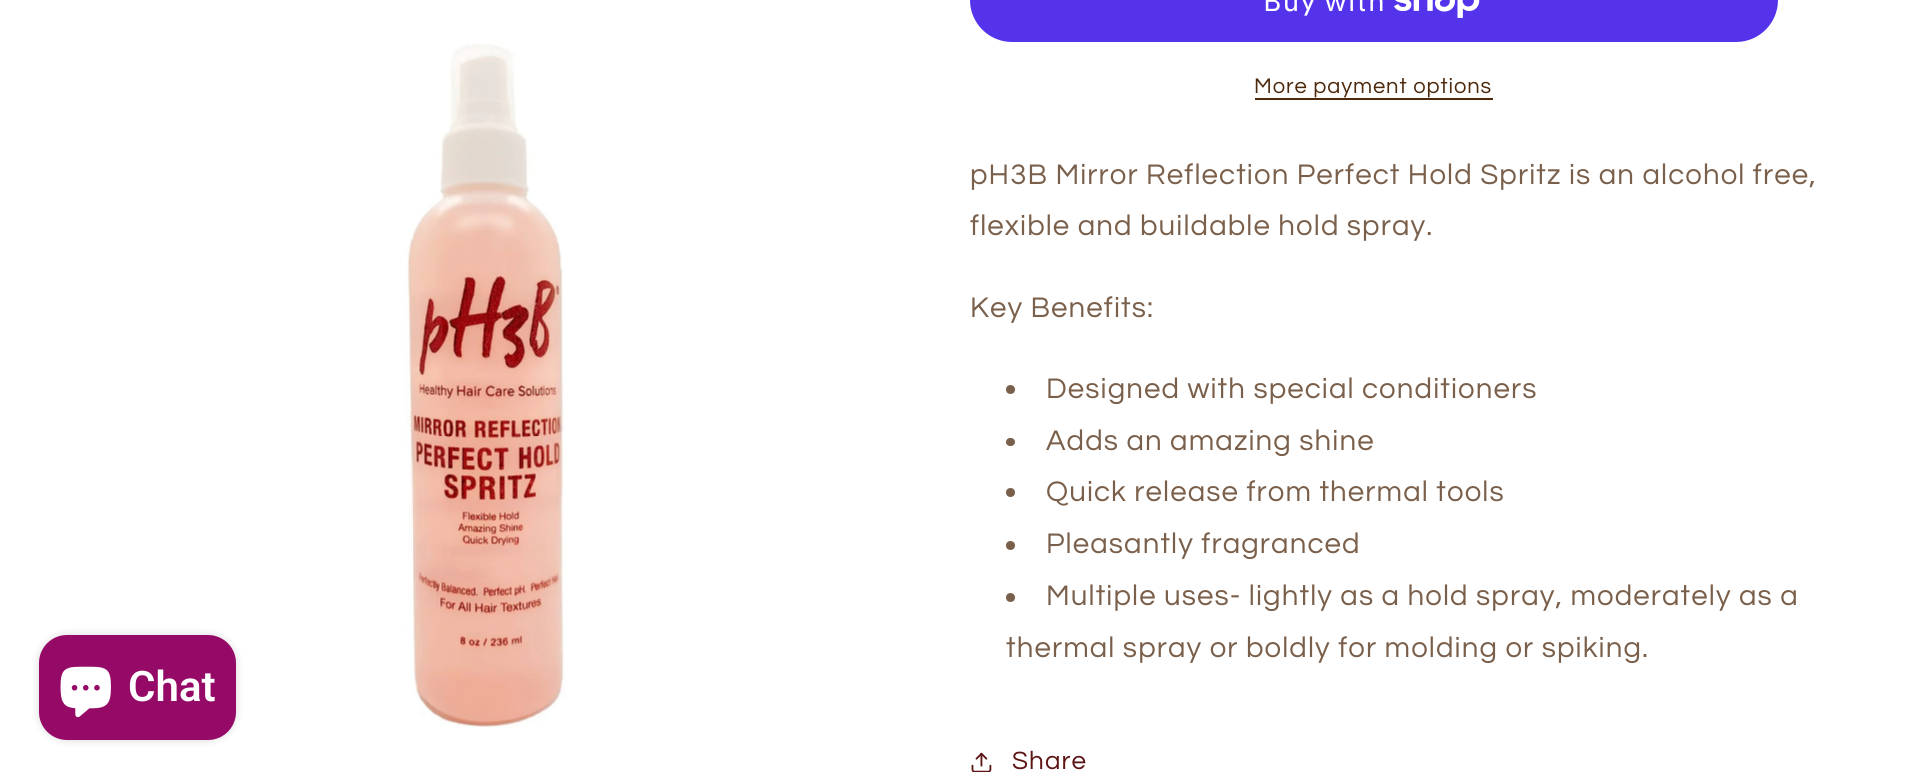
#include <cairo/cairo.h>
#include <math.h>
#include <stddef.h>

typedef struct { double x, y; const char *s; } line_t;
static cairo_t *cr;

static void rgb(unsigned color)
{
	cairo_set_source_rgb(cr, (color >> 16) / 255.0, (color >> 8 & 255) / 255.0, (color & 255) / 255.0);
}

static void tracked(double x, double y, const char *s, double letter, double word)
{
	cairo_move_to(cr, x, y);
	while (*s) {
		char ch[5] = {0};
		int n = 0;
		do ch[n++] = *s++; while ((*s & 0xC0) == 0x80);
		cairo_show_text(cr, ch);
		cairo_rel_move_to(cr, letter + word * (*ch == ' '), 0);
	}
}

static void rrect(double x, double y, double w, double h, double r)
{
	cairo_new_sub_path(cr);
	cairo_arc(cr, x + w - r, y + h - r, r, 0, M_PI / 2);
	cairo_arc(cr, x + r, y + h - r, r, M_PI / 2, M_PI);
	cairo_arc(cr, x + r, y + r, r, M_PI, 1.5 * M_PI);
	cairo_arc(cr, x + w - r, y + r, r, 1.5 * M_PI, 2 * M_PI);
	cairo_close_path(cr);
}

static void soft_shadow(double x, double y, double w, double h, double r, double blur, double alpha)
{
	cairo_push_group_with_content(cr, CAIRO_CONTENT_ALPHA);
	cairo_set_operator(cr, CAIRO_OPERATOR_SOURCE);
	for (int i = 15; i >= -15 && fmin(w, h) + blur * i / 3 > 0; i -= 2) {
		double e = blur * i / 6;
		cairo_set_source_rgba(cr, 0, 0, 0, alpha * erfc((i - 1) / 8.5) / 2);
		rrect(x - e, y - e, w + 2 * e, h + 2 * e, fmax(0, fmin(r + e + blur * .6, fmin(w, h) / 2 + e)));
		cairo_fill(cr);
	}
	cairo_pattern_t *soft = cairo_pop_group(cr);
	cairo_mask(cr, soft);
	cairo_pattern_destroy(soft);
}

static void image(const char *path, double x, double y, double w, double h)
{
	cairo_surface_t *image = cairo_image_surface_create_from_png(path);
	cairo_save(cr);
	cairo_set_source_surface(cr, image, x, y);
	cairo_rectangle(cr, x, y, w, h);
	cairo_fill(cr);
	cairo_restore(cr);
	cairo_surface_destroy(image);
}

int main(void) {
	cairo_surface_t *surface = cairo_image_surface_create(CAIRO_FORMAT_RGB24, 1930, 777);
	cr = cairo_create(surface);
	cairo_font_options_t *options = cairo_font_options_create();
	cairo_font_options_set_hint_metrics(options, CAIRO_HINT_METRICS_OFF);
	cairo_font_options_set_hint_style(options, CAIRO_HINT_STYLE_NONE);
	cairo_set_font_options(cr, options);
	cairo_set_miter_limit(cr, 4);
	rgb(0xffffff);
	cairo_paint(cr);
	rgb(0x000000);
	soft_shadow(39, 635, 197, 105, 28, 4.5, 0.15);
	rgb(0x960a67);
	rrect(39, 635, 197, 105, 28);
	cairo_fill(cr);
	image("img/1.png", 60, 666, 51, 52);
	image("img/2.png", 404, 43, 162, 685);
	rgb(0x5433eb);
	rrect(970, -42, 808, 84, 42);
	cairo_fill(cr);
	image("img/3.png", 1394, 0, 86, 18);
	rgb(0x4d2a0e);
	cairo_rectangle(cr, 1255, 98, 238, 2);
	cairo_fill(cr);
	rgb(0x7a5f4a);
	cairo_arc(cr, 1010.5, 389.5, 4.5, 0, 2 * M_PI);
	cairo_fill(cr);
	rrect(1006, 438, 9, 8, 4);
	cairo_fill(cr);
	cairo_arc(cr, 1010.5, 492.5, 4.5, 0, 2 * M_PI);
	cairo_fill(cr);
	cairo_arc(cr, 1010.5, 545.5, 4.5, 0, 2 * M_PI);
	cairo_fill(cr);
	cairo_arc(cr, 1010.5, 597.5, 4.5, 0, 2 * M_PI);
	cairo_fill(cr);
	image("img/4.png", 971, 752, 21, 20);
	cairo_select_font_face(cr, "Roboto SemiBold", CAIRO_FONT_SLANT_NORMAL, CAIRO_FONT_WEIGHT_NORMAL);
	cairo_set_font_size(cr, 42);
	rgb(0xffffff);
	cairo_move_to(cr, 128, 701);
	cairo_show_text(cr, "Chat");
	cairo_select_font_face(cr, "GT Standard", CAIRO_FONT_SLANT_NORMAL, CAIRO_FONT_WEIGHT_NORMAL);
	cairo_set_font_size(cr, 28);
	tracked(1263, 11, "Buy with", 1.1, 0);
	cairo_select_font_face(cr, "Questrial", CAIRO_FONT_SLANT_NORMAL, CAIRO_FONT_WEIGHT_NORMAL);
	cairo_set_font_size(cr, 22);
	rgb(0x4d2a0e);
	tracked(1254, 93, "More payment options", 0.9, 0);
	cairo_set_font_size(cr, 29.4);
	rgb(0x7a5f4a);
	{
		static const line_t items[] = {
			{970, 184, "pH3B Mirror Reflection Perfect Hold Spritz is an alcohol free,"},
			{970, 235, "flexible and buildable hold spray."},
			{970, 317, "Key Benefits:"},
			{1046, 398, "Designed with special conditioners"},
			{1046, 450, "Adds an amazing shine"},
			{1046, 501, "Quick release from thermal tools"},
			{1046, 553, "Pleasantly fragranced"},
			{1046, 605, "Multiple uses- lightly as a hold spray, moderately as a"},
			{1006, 657, "thermal spray or boldly for molding or spiking."},
		};
		for (size_t i = 0; i < sizeof items / sizeof *items; i++) {
			tracked(items[i].x, items[i].y, items[i].s, 1.1, 0);
		}
	}
	cairo_set_font_size(cr, 26);
	rgb(0x5d1414);
	tracked(1012, 769, "Share", 1.1, 0);
	cairo_surface_write_to_png(surface, "page.png");
	cairo_font_options_destroy(options);
	cairo_destroy(cr);
	cairo_surface_destroy(surface);
	return 0;
}
